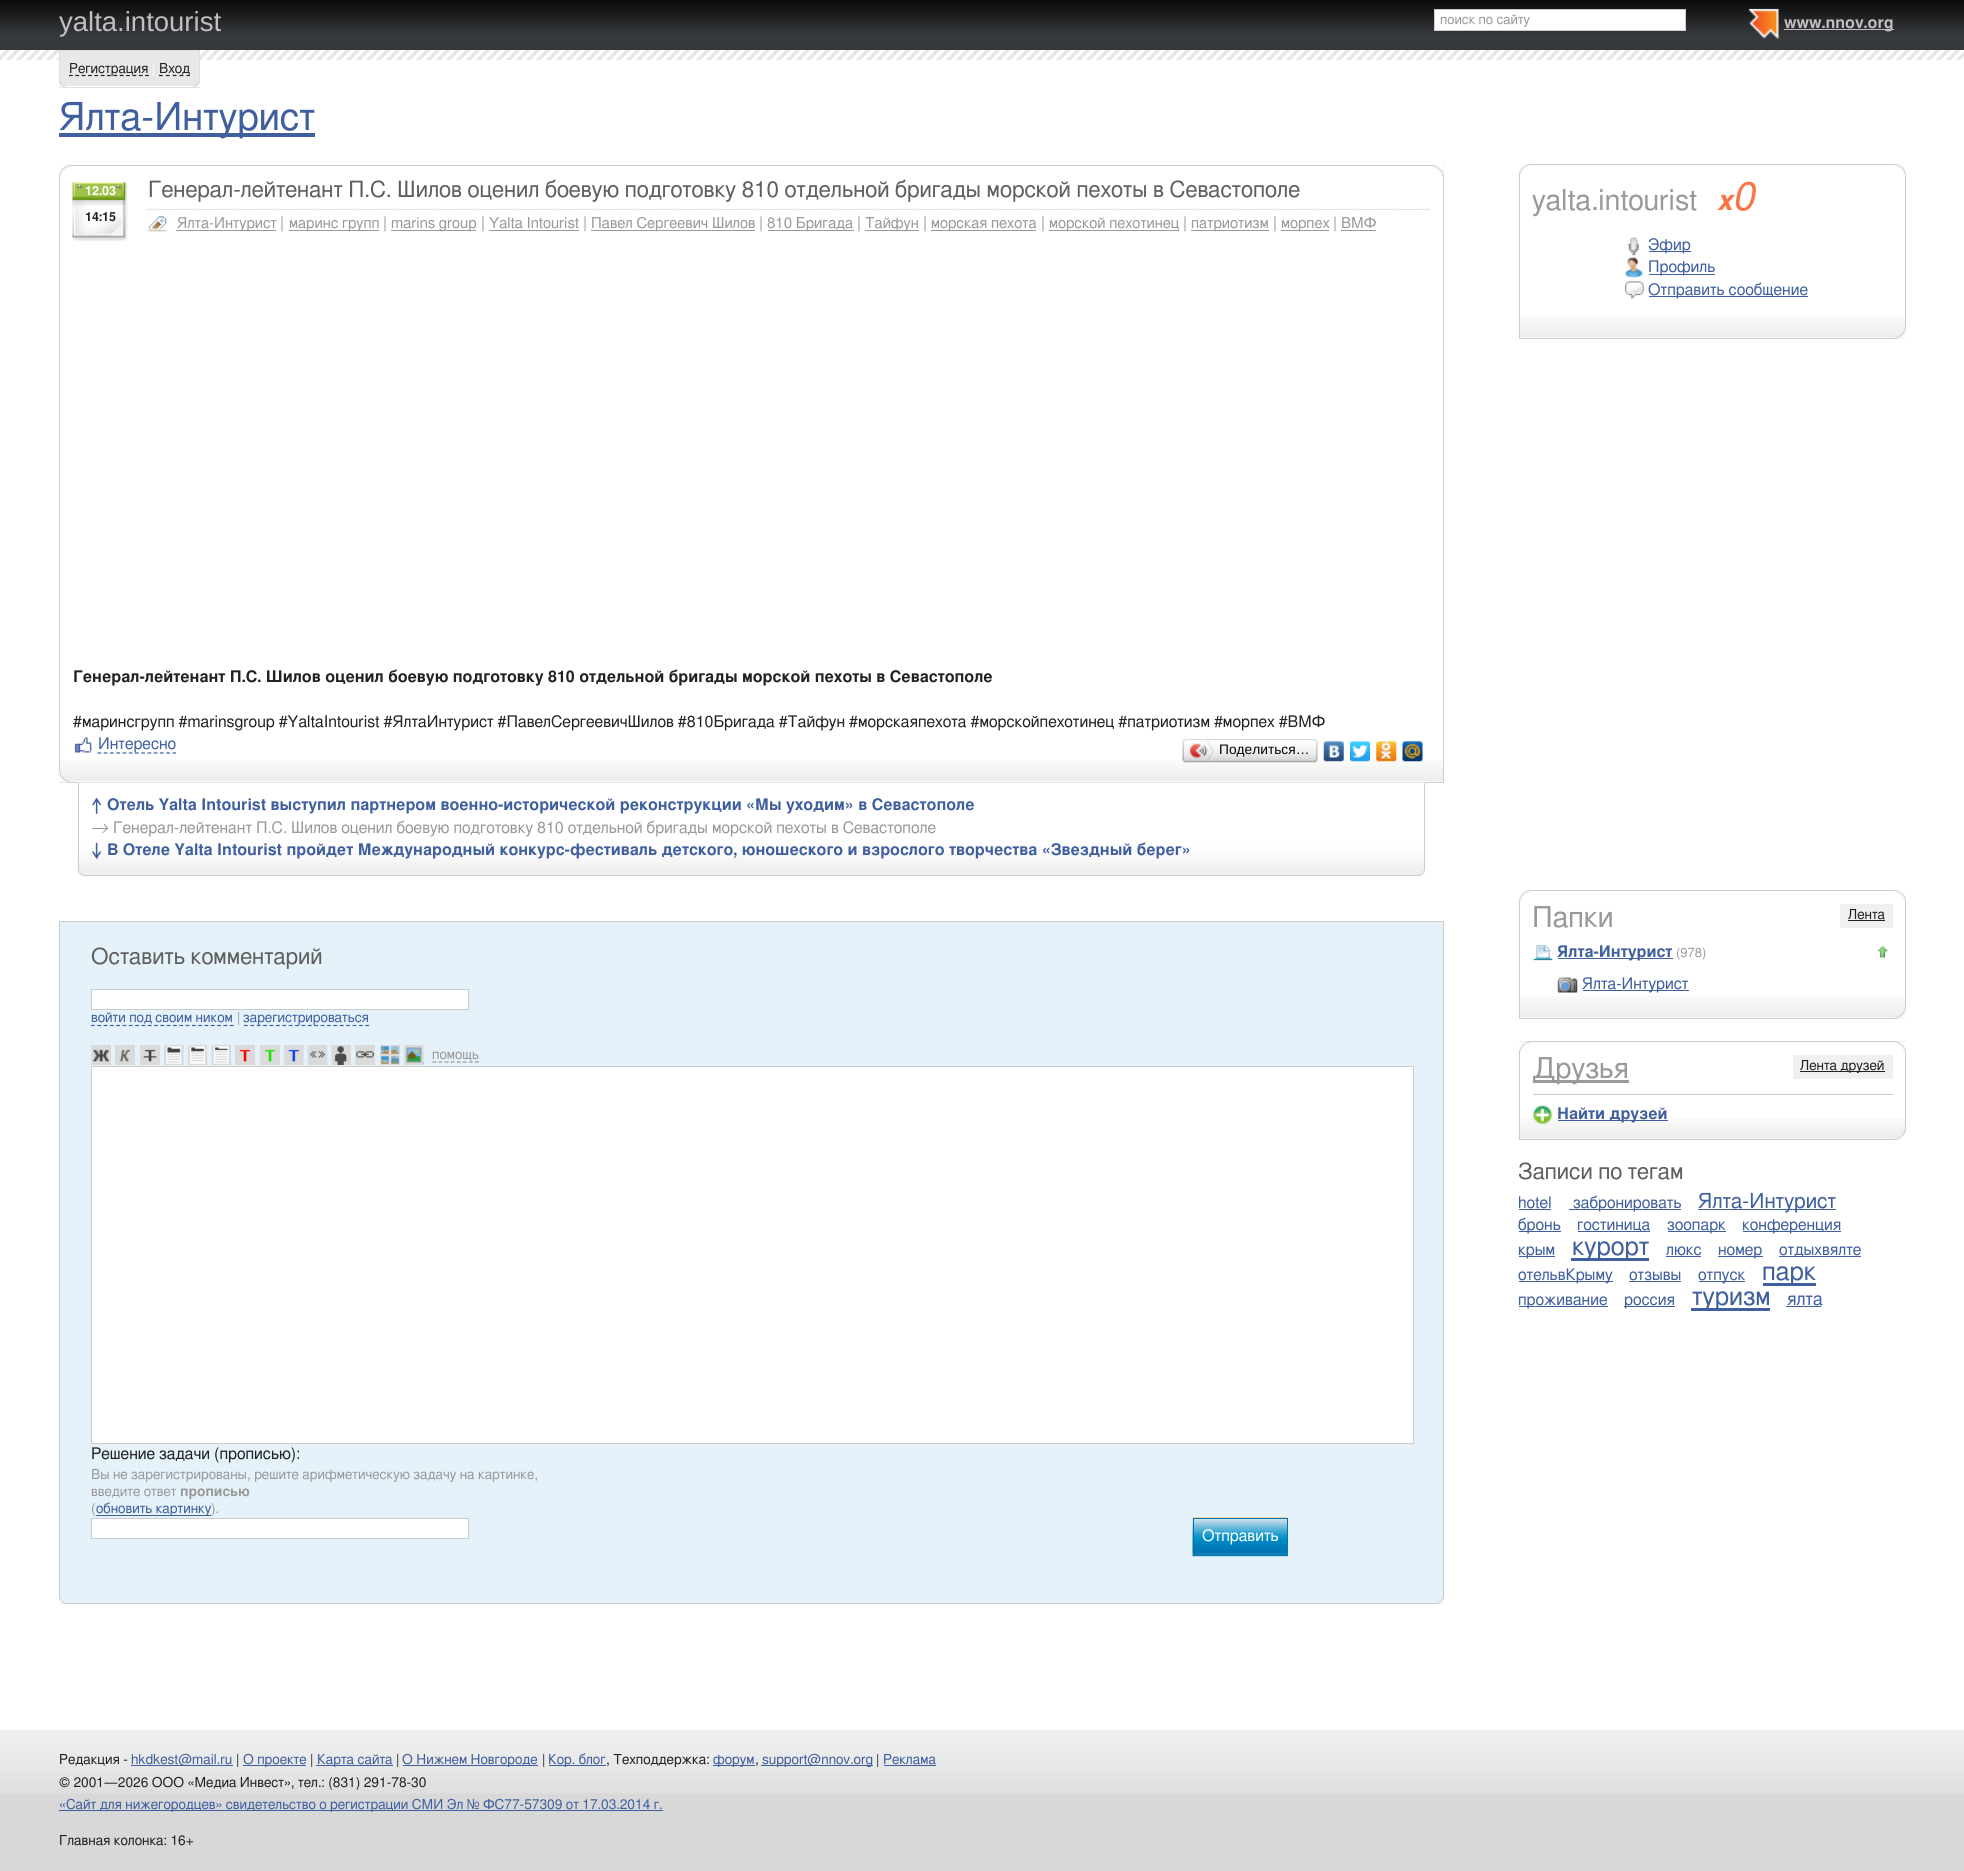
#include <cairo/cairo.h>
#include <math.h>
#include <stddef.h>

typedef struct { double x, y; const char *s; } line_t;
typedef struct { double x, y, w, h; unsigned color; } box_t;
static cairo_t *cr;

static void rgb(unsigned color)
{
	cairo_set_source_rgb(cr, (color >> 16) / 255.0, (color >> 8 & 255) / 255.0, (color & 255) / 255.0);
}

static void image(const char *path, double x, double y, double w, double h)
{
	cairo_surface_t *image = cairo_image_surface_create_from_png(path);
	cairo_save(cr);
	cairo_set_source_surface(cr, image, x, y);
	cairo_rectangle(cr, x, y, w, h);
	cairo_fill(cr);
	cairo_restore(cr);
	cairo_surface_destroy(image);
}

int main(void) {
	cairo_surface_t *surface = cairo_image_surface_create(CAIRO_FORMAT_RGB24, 1964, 1871);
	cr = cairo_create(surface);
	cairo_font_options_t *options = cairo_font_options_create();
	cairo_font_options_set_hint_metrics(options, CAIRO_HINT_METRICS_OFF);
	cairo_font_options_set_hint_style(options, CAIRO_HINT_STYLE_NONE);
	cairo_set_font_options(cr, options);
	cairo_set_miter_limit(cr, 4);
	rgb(0xffffff);
	cairo_paint(cr);
	image("img/1.png", 0, 0, 1964, 50);
	rgb(0xffffff);
	cairo_rectangle(cr, 1434.5, 9.5, 251, 21);
	cairo_fill_preserve(cr);
	rgb(0xcccccc);
	cairo_set_line_width(cr, 1);
	cairo_stroke(cr);
	image("img/2.png", 1748, 8, 31, 31);
	rgb(0xc0c0c0);
	cairo_rectangle(cr, 1784, 29, 110, 1);
	cairo_fill(cr);
	image("img/3.png", 0, 50, 1964, 10);
	cairo_rectangle(cr, 59.5, 50.5, 140, 37);
	rgb(0xdedede);
	cairo_stroke(cr);
	rgb(0xe8e8e8);
	cairo_rectangle(cr, 60, 51, 139, 35);
	cairo_fill(cr);
	cairo_new_path(cr);
	cairo_move_to(cr, 69, 75.5);
	cairo_line_to(cr, 149, 75.5);
	rgb(0x222222);
	cairo_set_line_width(cr, 1.2);
	cairo_set_dash(cr, (double[]){3.75, 2.6}, 2, 0);
	cairo_stroke(cr);
	cairo_new_path(cr);
	cairo_move_to(cr, 159, 75.5);
	cairo_line_to(cr, 190, 75.5);
	cairo_set_dash(cr, (double[]){3.75, 3.12}, 2, 0);
	cairo_stroke(cr);
	image("img/4.png", 58, 81, 7, 7);
	image("img/5.png", 193, 81, 7, 7);
	rgb(0x3f5f9e);
	cairo_rectangle(cr, 59, 133, 256, 4);
	cairo_fill(cr);
	image("img/6.png", 60, 760, 1383, 22);
	cairo_rectangle(cr, 59.5, 165.5, 1384, 617);
	rgb(0xcccccc);
	cairo_set_line_width(cr, 1);
	cairo_set_dash(cr, NULL, 0, 0);
	cairo_stroke(cr);
	image("img/7.png", 59, 165, 11, 11);
	image("img/8.png", 1432, 165, 12, 12);
	image("img/9.png", 72, 182, 56, 60);
	cairo_new_path(cr);
	cairo_move_to(cr, 147.5, 209.5);
	cairo_line_to(cr, 1430, 209.5);
	cairo_set_line_width(cr, 1.2);
	cairo_set_dash(cr, (double[]){1.25, 1.25}, 2, 0);
	cairo_stroke(cr);
	image("img/10.png", 147, 216, 21, 16);
	{
		static const box_t items[] = {
			{176, 230, 100, 1, 0x999999},
			{289, 230, 90, 1, 0x999999},
			{391, 230, 85, 1, 0x999999},
			{489, 230, 90, 1, 0x999999},
			{591, 230, 164, 1, 0x999999},
			{768, 230, 86, 1, 0x999999},
			{865, 230, 54, 1, 0x999999},
			{931, 230, 105, 1, 0x999999},
			{1049, 230, 130, 1, 0x999999},
			{1191, 230, 78, 1, 0x999999},
			{1281, 230, 48, 1, 0x999999},
			{1341, 230, 35, 1, 0x999999},
		};
		for (size_t i = 0; i < sizeof items / sizeof *items; i++) {
			rgb(items[i].color);
			cairo_rectangle(cr, items[i].x, items[i].y, items[i].w, items[i].h);
			cairo_fill(cr);
		}
	}
	image("img/11.png", 74, 737, 18, 16);
	cairo_new_path(cr);
	cairo_move_to(cr, 97.5, 753);
	cairo_line_to(cr, 176, 753);
	rgb(0x3f5f9e);
	cairo_set_dash(cr, (double[]){3.75, 2.5}, 2, 0);
	cairo_stroke(cr);
	image("img/12.png", 1186, 739, 128, 24);
	image("img/13.png", 1182, 738, 5, 25);
	image("img/14.png", 1190, 740, 25, 22);
	image("img/15.png", 1313, 738, 5, 25);
	image("img/16.png", 1323, 741, 21, 21);
	image("img/17.png", 1350, 741, 20, 21);
	image("img/18.png", 1376, 741, 21, 21);
	image("img/19.png", 1402, 741, 21, 21);
	image("img/20.png", 59, 771, 11, 12);
	image("img/21.png", 77, 782, 1348, 93);
	{
		static const box_t items[] = {
			{1424, 783, 1, 93, 0xcccccc},
			{78, 875, 1347, 1, 0xcccccc},
			{78, 783, 1, 93, 0xcccccc},
		};
		for (size_t i = 0; i < sizeof items / sizeof *items; i++) {
			rgb(items[i].color);
			cairo_rectangle(cr, items[i].x, items[i].y, items[i].w, items[i].h);
			cairo_fill(cr);
		}
	}
	image("img/22.png", 77, 870, 7, 7);
	image("img/23.png", 1419, 870, 6, 7);
	rgb(0xe5f2fa);
	cairo_rectangle(cr, 59.5, 921.5, 1384, 682);
	cairo_fill_preserve(cr);
	rgb(0xcccccc);
	cairo_set_line_width(cr, 1);
	cairo_set_dash(cr, NULL, 0, 0);
	cairo_stroke(cr);
	rgb(0xffffff);
	cairo_rectangle(cr, 91.5, 989.5, 377, 20);
	cairo_fill_preserve(cr);
	rgb(0xcccccc);
	cairo_stroke(cr);
	cairo_new_path(cr);
	cairo_move_to(cr, 91, 1025.5);
	cairo_line_to(cr, 234, 1025.5);
	rgb(0x3f5f9e);
	cairo_set_line_width(cr, 1.2);
	cairo_set_dash(cr, (double[]){3.75, 2.56}, 2, 0);
	cairo_stroke(cr);
	cairo_new_path(cr);
	cairo_move_to(cr, 244, 1025.5);
	cairo_line_to(cr, 369, 1025.5);
	cairo_set_dash(cr, (double[]){3.75, 2.64}, 2, 0);
	cairo_stroke(cr);
	image("img/24.png", 91, 1045, 20, 20);
	image("img/25.png", 115, 1045, 20, 20);
	image("img/26.png", 140, 1045, 20, 20);
	image("img/27.png", 164, 1045, 20, 20);
	image("img/28.png", 187, 1045, 21, 20);
	image("img/29.png", 211, 1045, 20, 20);
	image("img/30.png", 235, 1045, 20, 20);
	image("img/31.png", 260, 1045, 20, 20);
	image("img/32.png", 284, 1045, 20, 20);
	image("img/33.png", 307, 1045, 21, 20);
	image("img/34.png", 331, 1045, 20, 20);
	image("img/35.png", 355, 1045, 20, 20);
	image("img/36.png", 380, 1045, 20, 20);
	cairo_new_path(cr);
	cairo_move_to(cr, 404, 1063);
	cairo_line_to(cr, 424, 1063);
	cairo_set_dash(cr, (double[]){3.75, 1.66}, 2, 0);
	cairo_stroke(cr);
	image("img/37.png", 404, 1045, 20, 20);
	cairo_new_path(cr);
	cairo_move_to(cr, 432.5, 1062);
	cairo_line_to(cr, 479, 1062);
	rgb(0x999999);
	cairo_set_dash(cr, (double[]){3.75, 2.33}, 2, 0);
	cairo_stroke(cr);
	rgb(0xffffff);
	cairo_rectangle(cr, 91.5, 1066.5, 1322, 377);
	cairo_fill_preserve(cr);
	rgb(0xcccccc);
	cairo_set_line_width(cr, 1);
	cairo_set_dash(cr, NULL, 0, 0);
	cairo_stroke(cr);
	rgb(0x3f5f9e);
	cairo_rectangle(cr, 96, 1515, 115, 1);
	cairo_fill(cr);
	rgb(0xffffff);
	cairo_rectangle(cr, 91.5, 1518.5, 377, 20);
	cairo_fill_preserve(cr);
	rgb(0xcccccc);
	cairo_stroke(cr);
	image("img/38.png", 1192, 1517, 96, 40);
	cairo_rectangle(cr, 1193.5, 1518.5, 94, 37);
	rgb(0x0175b0);
	cairo_stroke(cr);
	image("img/39.png", 59, 1597, 6, 7);
	image("img/40.png", 1437, 1597, 7, 7);
	image("img/41.png", 1518, 316, 387, 22);
	cairo_rectangle(cr, 1519.5, 164.5, 386, 174);
	rgb(0xcccccc);
	cairo_stroke(cr);
	image("img/42.png", 1518, 163, 12, 12);
	image("img/43.png", 1895, 163, 11, 12);
	image("img/44.png", 1627, 237, 13, 19);
	rgb(0x3f5f9e);
	cairo_rectangle(cr, 1649, 251, 42, 1);
	cairo_fill(cr);
	image("img/45.png", 1625, 257, 18, 21);
	cairo_rectangle(cr, 1649, 274, 66, 1);
	cairo_fill(cr);
	image("img/46.png", 1624, 281, 20, 18);
	cairo_rectangle(cr, 1649, 296, 159, 1);
	cairo_fill(cr);
	image("img/47.png", 1895, 328, 11, 11);
	image("img/48.png", 1518, 996, 387, 22);
	cairo_rectangle(cr, 1519.5, 890.5, 386, 128);
	rgb(0xcccccc);
	cairo_stroke(cr);
	image("img/49.png", 1518, 890, 12, 11);
	image("img/50.png", 1895, 890, 11, 11);
	rgb(0xf0f0f0);
	cairo_rectangle(cr, 1840, 904, 53, 24);
	cairo_fill(cr);
	rgb(0x222222);
	cairo_rectangle(cr, 1848, 920, 37, 1);
	cairo_fill(cr);
	image("img/51.png", 1533, 944, 20, 17);
	rgb(0x3f5f9e);
	cairo_rectangle(cr, 1558, 958, 115, 1);
	cairo_fill(cr);
	image("img/52.png", 1877, 946, 11, 12);
	image("img/53.png", 1557, 977, 21, 16);
	cairo_rectangle(cr, 1583, 990, 106, 1);
	cairo_fill(cr);
	image("img/54.png", 1895, 1008, 11, 11);
	image("img/55.png", 1518, 1117, 387, 22);
	cairo_rectangle(cr, 1519.5, 1041.5, 386, 98);
	rgb(0xcccccc);
	cairo_stroke(cr);
	image("img/56.png", 1518, 1041, 12, 12);
	image("img/57.png", 1895, 1041, 11, 12);
	{
		static const box_t items[] = {
			{1533, 1080, 96, 3, 0x9a9a9a},
			{1793, 1055, 100, 24, 0xf0f0f0},
			{1800, 1071, 85, 1, 0x222222},
			{1533, 1094, 360, 1, 0xcccccc},
		};
		for (size_t i = 0; i < sizeof items / sizeof *items; i++) {
			rgb(items[i].color);
			cairo_rectangle(cr, items[i].x, items[i].y, items[i].w, items[i].h);
			cairo_fill(cr);
		}
	}
	image("img/58.png", 1532, 1105, 21, 20);
	rgb(0x3f5f9e);
	cairo_rectangle(cr, 1558, 1120, 110, 1);
	cairo_fill(cr);
	image("img/59.png", 1895, 1129, 11, 11);
	{
		static const box_t items[] = {
			{1519, 1209, 32, 1, 0x3f5f9e},
			{1569, 1209, 112, 1, 0x3f5f9e},
			{1698, 1209, 138, 1, 0x3f5f9e},
			{1519, 1231, 42, 1, 0x3f5f9e},
			{1578, 1231, 72, 1, 0x3f5f9e},
			{1668, 1231, 58, 1, 0x3f5f9e},
			{1743, 1231, 98, 1, 0x3f5f9e},
			{1519, 1256, 36, 1, 0x3f5f9e},
			{1571, 1258, 78, 3, 0x3f5f9e},
			{1666, 1256, 35, 1, 0x3f5f9e},
			{1718, 1256, 45, 1, 0x3f5f9e},
			{1779, 1256, 82, 1, 0x3f5f9e},
			{1519, 1281, 94, 1, 0x3f5f9e},
			{1629, 1281, 52, 1, 0x3f5f9e},
			{1699, 1281, 46, 1, 0x3f5f9e},
			{1763, 1283, 53, 3, 0x3f5f9e},
			{1519, 1306, 89, 1, 0x3f5f9e},
			{1624, 1306, 51, 1, 0x3f5f9e},
			{1691, 1308, 79, 3, 0x3f5f9e},
			{1786, 1306, 35, 1, 0x3f5f9e},
			{0, 1794, 1964, 77, 0xd8d8d8},
		};
		for (size_t i = 0; i < sizeof items / sizeof *items; i++) {
			rgb(items[i].color);
			cairo_rectangle(cr, items[i].x, items[i].y, items[i].w, items[i].h);
			cairo_fill(cr);
		}
	}
	image("img/60.png", 0, 1730, 1964, 64);
	{
		static const box_t items[] = {
			{131, 1765, 102, 1, 0x3f5f9e},
			{243, 1765, 63, 1, 0x3f5f9e},
			{316, 1765, 77, 1, 0x3f5f9e},
			{403, 1765, 135, 1, 0x3f5f9e},
			{549, 1765, 57, 1, 0x3f5f9e},
			{713, 1765, 42, 1, 0x3f5f9e},
			{761, 1765, 112, 1, 0x3f5f9e},
			{884, 1765, 52, 1, 0x3f5f9e},
			{59, 1810, 604, 1, 0x3f5f9e},
		};
		for (size_t i = 0; i < sizeof items / sizeof *items; i++) {
			rgb(items[i].color);
			cairo_rectangle(cr, items[i].x, items[i].y, items[i].w, items[i].h);
			cairo_fill(cr);
		}
	}
	cairo_select_font_face(cr, "Liberation Sans", CAIRO_FONT_SLANT_NORMAL, CAIRO_FONT_WEIGHT_NORMAL);
	cairo_set_font_size(cr, 27.5);
	rgb(0xc0c0c0);
	cairo_move_to(cr, 59, 31);
	cairo_show_text(cr, "yalta.intourist");
	cairo_select_font_face(cr, "FreeSans", CAIRO_FONT_SLANT_NORMAL, CAIRO_FONT_WEIGHT_NORMAL);
	cairo_set_font_size(cr, 13.5);
	rgb(0x999999);
	cairo_move_to(cr, 1440, 24);
	cairo_show_text(cr, "поиск по сайту");
	cairo_select_font_face(cr, "FreeSans SemiBold", CAIRO_FONT_SLANT_NORMAL, CAIRO_FONT_WEIGHT_NORMAL);
	cairo_set_font_size(cr, 16);
	rgb(0xc0c0c0);
	cairo_move_to(cr, 1784, 28);
	cairo_show_text(cr, "www.nnov.org");
	cairo_select_font_face(cr, "FreeSans", CAIRO_FONT_SLANT_NORMAL, CAIRO_FONT_WEIGHT_NORMAL);
	cairo_set_font_size(cr, 13.75);
	rgb(0x222222);
	cairo_move_to(cr, 69, 73);
	cairo_show_text(cr, "Регистрация");
	rgb(0xffffff);
	cairo_move_to(cr, 152, 73);
	cairo_show_text(cr, "|");
	rgb(0x222222);
	cairo_move_to(cr, 159, 73);
	cairo_show_text(cr, "Вход");
	cairo_set_font_size(cr, 38.5);
	rgb(0x3f5f9e);
	cairo_move_to(cr, 59, 130);
	cairo_show_text(cr, "Ялта-Интурист");
	cairo_select_font_face(cr, "FreeSans SemiBold", CAIRO_FONT_SLANT_NORMAL, CAIRO_FONT_WEIGHT_NORMAL);
	cairo_set_font_size(cr, 12.5);
	rgb(0xffffff);
	cairo_move_to(cr, 85, 195);
	cairo_show_text(cr, "12.03");
	rgb(0x222222);
	cairo_move_to(cr, 85, 221);
	cairo_show_text(cr, "14:15");
	cairo_select_font_face(cr, "FreeSans", CAIRO_FONT_SLANT_NORMAL, CAIRO_FONT_WEIGHT_NORMAL);
	cairo_set_font_size(cr, 22.4);
	rgb(0x5f5f5f);
	cairo_move_to(cr, 148, 197);
	cairo_show_text(cr, "Генерал-лейтенант П.С. Шилов оценил боевую подготовку 810 отдельной бригады морской пехоты в Севастополе");
	cairo_set_font_size(cr, 15);
	rgb(0x999999);
	cairo_move_to(cr, 177, 228);
	cairo_show_text(cr, "Ялта-Интурист");
	cairo_set_font_size(cr, 16);
	cairo_move_to(cr, 280, 228);
	cairo_show_text(cr, "|");
	cairo_set_font_size(cr, 15);
	cairo_move_to(cr, 289, 228);
	cairo_show_text(cr, "маринс групп");
	cairo_set_font_size(cr, 16);
	cairo_move_to(cr, 383, 228);
	cairo_show_text(cr, "|");
	cairo_set_font_size(cr, 15);
	cairo_move_to(cr, 391, 228);
	cairo_show_text(cr, "marins group");
	cairo_set_font_size(cr, 16);
	cairo_move_to(cr, 481, 228);
	cairo_show_text(cr, "|");
	cairo_set_font_size(cr, 15);
	cairo_move_to(cr, 489, 228);
	cairo_show_text(cr, "Yalta Intourist");
	cairo_set_font_size(cr, 16);
	cairo_move_to(cr, 583, 228);
	cairo_show_text(cr, "|");
	cairo_set_font_size(cr, 15);
	cairo_move_to(cr, 591, 228);
	cairo_show_text(cr, "Павел Сергеевич Шилов");
	cairo_set_font_size(cr, 16);
	cairo_move_to(cr, 759, 228);
	cairo_show_text(cr, "|");
	cairo_set_font_size(cr, 15);
	cairo_move_to(cr, 767, 228);
	cairo_show_text(cr, "810 Бригада");
	cairo_set_font_size(cr, 16);
	cairo_move_to(cr, 857, 228);
	cairo_show_text(cr, "|");
	cairo_set_font_size(cr, 15);
	cairo_move_to(cr, 865, 228);
	cairo_show_text(cr, "Тайфун");
	cairo_set_font_size(cr, 16);
	cairo_move_to(cr, 923, 228);
	cairo_show_text(cr, "|");
	cairo_set_font_size(cr, 15);
	cairo_move_to(cr, 931, 228);
	cairo_show_text(cr, "морская пехота");
	cairo_set_font_size(cr, 16);
	cairo_move_to(cr, 1041, 228);
	cairo_show_text(cr, "|");
	cairo_set_font_size(cr, 15);
	cairo_move_to(cr, 1049, 228);
	cairo_show_text(cr, "морской пехотинец");
	cairo_set_font_size(cr, 16);
	cairo_move_to(cr, 1183, 228);
	cairo_show_text(cr, "|");
	cairo_set_font_size(cr, 15);
	cairo_move_to(cr, 1191, 228);
	cairo_show_text(cr, "патриотизм");
	cairo_set_font_size(cr, 16);
	cairo_move_to(cr, 1273, 228);
	cairo_show_text(cr, "|");
	cairo_set_font_size(cr, 15);
	cairo_move_to(cr, 1281, 228);
	cairo_show_text(cr, "морпех");
	cairo_set_font_size(cr, 16);
	cairo_move_to(cr, 1333, 228);
	cairo_show_text(cr, "|");
	cairo_set_font_size(cr, 15);
	cairo_move_to(cr, 1341, 228);
	cairo_show_text(cr, "ВМФ");
	cairo_select_font_face(cr, "FreeSans SemiBold", CAIRO_FONT_SLANT_NORMAL, CAIRO_FONT_WEIGHT_NORMAL);
	cairo_set_font_size(cr, 16);
	rgb(0x222222);
	cairo_move_to(cr, 73, 682);
	cairo_show_text(cr, "Генерал-лейтенант П.С. Шилов оценил боевую подготовку 810 отдельной бригады морской пехоты в Севастополе");
	cairo_select_font_face(cr, "FreeSans", CAIRO_FONT_SLANT_NORMAL, CAIRO_FONT_WEIGHT_NORMAL);
	cairo_move_to(cr, 73, 727);
	cairo_show_text(cr, "#маринсгрупп #marinsgroup #YaltaIntourist #ЯлтаИнтурист #ПавелСергеевичШилов #810Бригада #Тайфун #морскаяпехота #морскойпехотинец #патриотизм #морпех #ВМФ");
	rgb(0x3f5f9e);
	cairo_move_to(cr, 98, 749);
	cairo_show_text(cr, "Интересно");
	cairo_select_font_face(cr, "Liberation Sans", CAIRO_FONT_SLANT_NORMAL, CAIRO_FONT_WEIGHT_NORMAL);
	cairo_set_font_size(cr, 13.75);
	rgb(0x000000);
	cairo_move_to(cr, 1219, 754);
	cairo_show_text(cr, "Поделиться…");
	cairo_select_font_face(cr, "FreeSans SemiBold", CAIRO_FONT_SLANT_ITALIC, CAIRO_FONT_WEIGHT_NORMAL);
	cairo_set_font_size(cr, 18);
	rgb(0x3f5f9e);
	cairo_move_to(cr, 91, 810);
	cairo_show_text(cr, "↑");
	cairo_select_font_face(cr, "FreeSans SemiBold", CAIRO_FONT_SLANT_NORMAL, CAIRO_FONT_WEIGHT_NORMAL);
	cairo_set_font_size(cr, 16);
	cairo_move_to(cr, 107, 810);
	cairo_show_text(cr, "Отель Yalta Intourist выступил партнером военно-исторической реконструкции «Мы уходим» в Севастополе");
	cairo_select_font_face(cr, "FreeSans", CAIRO_FONT_SLANT_ITALIC, CAIRO_FONT_WEIGHT_NORMAL);
	cairo_set_font_size(cr, 18);
	rgb(0x999999);
	cairo_move_to(cr, 91, 833);
	cairo_show_text(cr, "→");
	cairo_select_font_face(cr, "FreeSans", CAIRO_FONT_SLANT_NORMAL, CAIRO_FONT_WEIGHT_NORMAL);
	cairo_set_font_size(cr, 16);
	cairo_move_to(cr, 113, 833);
	cairo_show_text(cr, "Генерал-лейтенант П.С. Шилов оценил боевую подготовку 810 отдельной бригады морской пехоты в Севастополе");
	cairo_select_font_face(cr, "FreeSans SemiBold", CAIRO_FONT_SLANT_ITALIC, CAIRO_FONT_WEIGHT_NORMAL);
	cairo_set_font_size(cr, 18);
	rgb(0x3f5f9e);
	cairo_move_to(cr, 91, 855);
	cairo_show_text(cr, "↓");
	cairo_select_font_face(cr, "FreeSans SemiBold", CAIRO_FONT_SLANT_NORMAL, CAIRO_FONT_WEIGHT_NORMAL);
	cairo_set_font_size(cr, 16);
	cairo_move_to(cr, 107, 855);
	cairo_show_text(cr, "В Отеле Yalta Intourist пройдет Международный конкурс-фестиваль детского, юношеского и взрослого творчества «Звездный берег»");
	cairo_select_font_face(cr, "FreeSans", CAIRO_FONT_SLANT_NORMAL, CAIRO_FONT_WEIGHT_NORMAL);
	cairo_set_font_size(cr, 22.4);
	rgb(0x5f5f5f);
	cairo_move_to(cr, 91, 964);
	cairo_show_text(cr, "Оставить комментарий");
	cairo_set_font_size(cr, 13.75);
	rgb(0x3f5f9e);
	cairo_move_to(cr, 91, 1022);
	cairo_show_text(cr, "войти под своим ником");
	rgb(0x999999);
	cairo_move_to(cr, 237, 1022);
	cairo_show_text(cr, "|");
	rgb(0x3f5f9e);
	cairo_move_to(cr, 243, 1022);
	cairo_show_text(cr, "зарегистрироваться");
	rgb(0x999999);
	cairo_move_to(cr, 432, 1059);
	cairo_show_text(cr, "помощь");
	cairo_set_font_size(cr, 16);
	rgb(0x222222);
	cairo_move_to(cr, 91, 1459);
	cairo_show_text(cr, "Решение задачи (прописью):");
	cairo_set_font_size(cr, 13.75);
	rgb(0x999999);
	cairo_move_to(cr, 91, 1479);
	cairo_show_text(cr, "Вы не зарегистрированы, решите арифметическую задачу на картинке,");
	cairo_move_to(cr, 91, 1496);
	cairo_show_text(cr, "введите ответ");
	cairo_select_font_face(cr, "FreeSans SemiBold", CAIRO_FONT_SLANT_NORMAL, CAIRO_FONT_WEIGHT_NORMAL);
	cairo_move_to(cr, 180, 1496);
	cairo_show_text(cr, "прописью");
	cairo_select_font_face(cr, "FreeSans", CAIRO_FONT_SLANT_NORMAL, CAIRO_FONT_WEIGHT_NORMAL);
	cairo_move_to(cr, 91, 1513);
	cairo_show_text(cr, "(");
	rgb(0x3f5f9e);
	cairo_move_to(cr, 96, 1513);
	cairo_show_text(cr, "обновить картинку");
	rgb(0x999999);
	cairo_move_to(cr, 211, 1513);
	cairo_show_text(cr, ").");
	cairo_set_font_size(cr, 16);
	rgb(0xffffff);
	cairo_move_to(cr, 1202, 1541);
	cairo_show_text(cr, "Отправить");
	cairo_set_font_size(cr, 28.75);
	rgb(0x999999);
	cairo_move_to(cr, 1532, 210);
	cairo_show_text(cr, "yalta.intourist");
	cairo_select_font_face(cr, "FreeSans SemiBold", CAIRO_FONT_SLANT_ITALIC, CAIRO_FONT_WEIGHT_NORMAL);
	cairo_set_font_size(cr, 28);
	rgb(0xfc7445);
	cairo_move_to(cr, 1717, 210);
	cairo_show_text(cr, "x");
	cairo_select_font_face(cr, "FreeSans", CAIRO_FONT_SLANT_ITALIC, CAIRO_FONT_WEIGHT_NORMAL);
	cairo_set_font_size(cr, 40);
	cairo_move_to(cr, 1732, 210);
	cairo_show_text(cr, "0");
	cairo_select_font_face(cr, "FreeSans", CAIRO_FONT_SLANT_NORMAL, CAIRO_FONT_WEIGHT_NORMAL);
	cairo_set_font_size(cr, 16);
	rgb(0x3f5f9e);
	{
		static const line_t items[] = {
			{1648, 250, "Эфир"},
			{1648, 272, "Профиль"},
			{1648, 295, "Отправить сообщение"},
		};
		for (size_t i = 0; i < sizeof items / sizeof *items; i++) {
			cairo_move_to(cr, items[i].x, items[i].y);
			cairo_show_text(cr, items[i].s);
		}
	}
	cairo_set_font_size(cr, 28.75);
	rgb(0x999999);
	cairo_move_to(cr, 1532, 927);
	cairo_show_text(cr, "Папки");
	cairo_set_font_size(cr, 13.75);
	rgb(0x222222);
	cairo_move_to(cr, 1848, 919);
	cairo_show_text(cr, "Лента");
	cairo_select_font_face(cr, "FreeSans SemiBold", CAIRO_FONT_SLANT_NORMAL, CAIRO_FONT_WEIGHT_NORMAL);
	cairo_set_font_size(cr, 16);
	rgb(0x3f5f9e);
	cairo_move_to(cr, 1557, 957);
	cairo_show_text(cr, "Ялта-Интурист");
	cairo_select_font_face(cr, "FreeSans", CAIRO_FONT_SLANT_NORMAL, CAIRO_FONT_WEIGHT_NORMAL);
	cairo_set_font_size(cr, 13);
	rgb(0x999999);
	cairo_move_to(cr, 1676, 957);
	cairo_show_text(cr, "(978)");
	cairo_set_font_size(cr, 16);
	rgb(0x3f5f9e);
	cairo_move_to(cr, 1582, 989);
	cairo_show_text(cr, "Ялта-Интурист");
	cairo_set_font_size(cr, 28.75);
	rgb(0x999999);
	cairo_move_to(cr, 1532, 1078);
	cairo_show_text(cr, "Друзья");
	cairo_set_font_size(cr, 13.75);
	rgb(0x222222);
	cairo_move_to(cr, 1800, 1070);
	cairo_show_text(cr, "Лента друзей");
	cairo_select_font_face(cr, "FreeSans SemiBold", CAIRO_FONT_SLANT_NORMAL, CAIRO_FONT_WEIGHT_NORMAL);
	cairo_set_font_size(cr, 16);
	rgb(0x3f5f9e);
	cairo_move_to(cr, 1557, 1119);
	cairo_show_text(cr, "Найти друзей");
	cairo_select_font_face(cr, "FreeSans", CAIRO_FONT_SLANT_NORMAL, CAIRO_FONT_WEIGHT_NORMAL);
	cairo_set_font_size(cr, 22.4);
	rgb(0x5f5f5f);
	cairo_move_to(cr, 1518, 1179);
	cairo_show_text(cr, "Записи по тегам");
	cairo_set_font_size(cr, 16);
	rgb(0x3f5f9e);
	cairo_move_to(cr, 1518, 1208);
	cairo_show_text(cr, "hotel");
	cairo_move_to(cr, 1573, 1208);
	cairo_show_text(cr, "забронировать");
	cairo_set_font_size(cr, 20.75);
	cairo_move_to(cr, 1698, 1208);
	cairo_show_text(cr, "Ялта-Интурист");
	cairo_set_font_size(cr, 16);
	{
		static const line_t items[] = {
			{1518, 1230, "бронь"},
			{1577, 1230, "гостиница"},
			{1667, 1230, "зоопарк"},
			{1742, 1230, "конференция"},
			{1518, 1255, "крым"},
		};
		for (size_t i = 0; i < sizeof items / sizeof *items; i++) {
			cairo_move_to(cr, items[i].x, items[i].y);
			cairo_show_text(cr, items[i].s);
		}
	}
	cairo_set_font_size(cr, 25.5);
	cairo_move_to(cr, 1572, 1255);
	cairo_show_text(cr, "курорт");
	cairo_set_font_size(cr, 16);
	{
		static const line_t items[] = {
			{1666, 1255, "люкс"},
			{1718, 1255, "номер"},
			{1779, 1255, "отдыхвялте"},
			{1518, 1280, "отельвКрыму"},
			{1629, 1280, "отзывы"},
			{1698, 1280, "отпуск"},
		};
		for (size_t i = 0; i < sizeof items / sizeof *items; i++) {
			cairo_move_to(cr, items[i].x, items[i].y);
			cairo_show_text(cr, items[i].s);
		}
	}
	cairo_set_font_size(cr, 25.5);
	cairo_move_to(cr, 1762, 1280);
	cairo_show_text(cr, "парк");
	cairo_set_font_size(cr, 16);
	cairo_move_to(cr, 1518, 1305);
	cairo_show_text(cr, "проживание");
	cairo_move_to(cr, 1624, 1305);
	cairo_show_text(cr, "россия");
	cairo_set_font_size(cr, 25.5);
	cairo_move_to(cr, 1692, 1305);
	cairo_show_text(cr, "туризм");
	cairo_set_font_size(cr, 18);
	cairo_move_to(cr, 1787, 1305);
	cairo_show_text(cr, "ялта");
	cairo_set_font_size(cr, 13.75);
	rgb(0x222222);
	cairo_move_to(cr, 59, 1764);
	cairo_show_text(cr, "Редакция -");
	rgb(0x3f5f9e);
	cairo_move_to(cr, 131, 1764);
	cairo_show_text(cr, "hkdkest@mail.ru");
	rgb(0x222222);
	cairo_move_to(cr, 236, 1764);
	cairo_show_text(cr, "|");
	rgb(0x3f5f9e);
	cairo_move_to(cr, 243, 1764);
	cairo_show_text(cr, "О проекте");
	rgb(0x222222);
	cairo_move_to(cr, 310, 1764);
	cairo_show_text(cr, "|");
	rgb(0x3f5f9e);
	cairo_move_to(cr, 317, 1764);
	cairo_show_text(cr, "Карта сайта");
	rgb(0x222222);
	cairo_move_to(cr, 396, 1764);
	cairo_show_text(cr, "|");
	rgb(0x3f5f9e);
	cairo_move_to(cr, 402, 1764);
	cairo_show_text(cr, "О Нижнем Новгороде");
	rgb(0x222222);
	cairo_move_to(cr, 542, 1764);
	cairo_show_text(cr, "|");
	rgb(0x3f5f9e);
	cairo_move_to(cr, 548, 1764);
	cairo_show_text(cr, "Кор. блог");
	rgb(0x222222);
	cairo_move_to(cr, 606, 1764);
	cairo_show_text(cr, ", Техподдержка:");
	rgb(0x3f5f9e);
	cairo_move_to(cr, 713, 1764);
	cairo_show_text(cr, "форум");
	rgb(0x222222);
	cairo_move_to(cr, 755, 1764);
	cairo_show_text(cr, ",");
	rgb(0x3f5f9e);
	cairo_move_to(cr, 762, 1764);
	cairo_show_text(cr, "support@nnov.org");
	rgb(0x222222);
	cairo_move_to(cr, 876, 1764);
	cairo_show_text(cr, "|");
	rgb(0x3f5f9e);
	cairo_move_to(cr, 883, 1764);
	cairo_show_text(cr, "Реклама");
	rgb(0x222222);
	cairo_move_to(cr, 59, 1787);
	cairo_show_text(cr, "© 2001—2026 ООО «Медиа Инвест», тел.: (831) 291-78-30");
	rgb(0x3f5f9e);
	cairo_move_to(cr, 59, 1809);
	cairo_show_text(cr, "«Сайт для нижегородцев» свидетельство о регистрации СМИ Эл № ФС77-57309 от 17.03.2014 г.");
	rgb(0x222222);
	cairo_move_to(cr, 59, 1845);
	cairo_show_text(cr, "Главная колонка: 16+");
	cairo_surface_write_to_png(surface, "page.png");
	cairo_font_options_destroy(options);
	cairo_destroy(cr);
	cairo_surface_destroy(surface);
	return 0;
}
